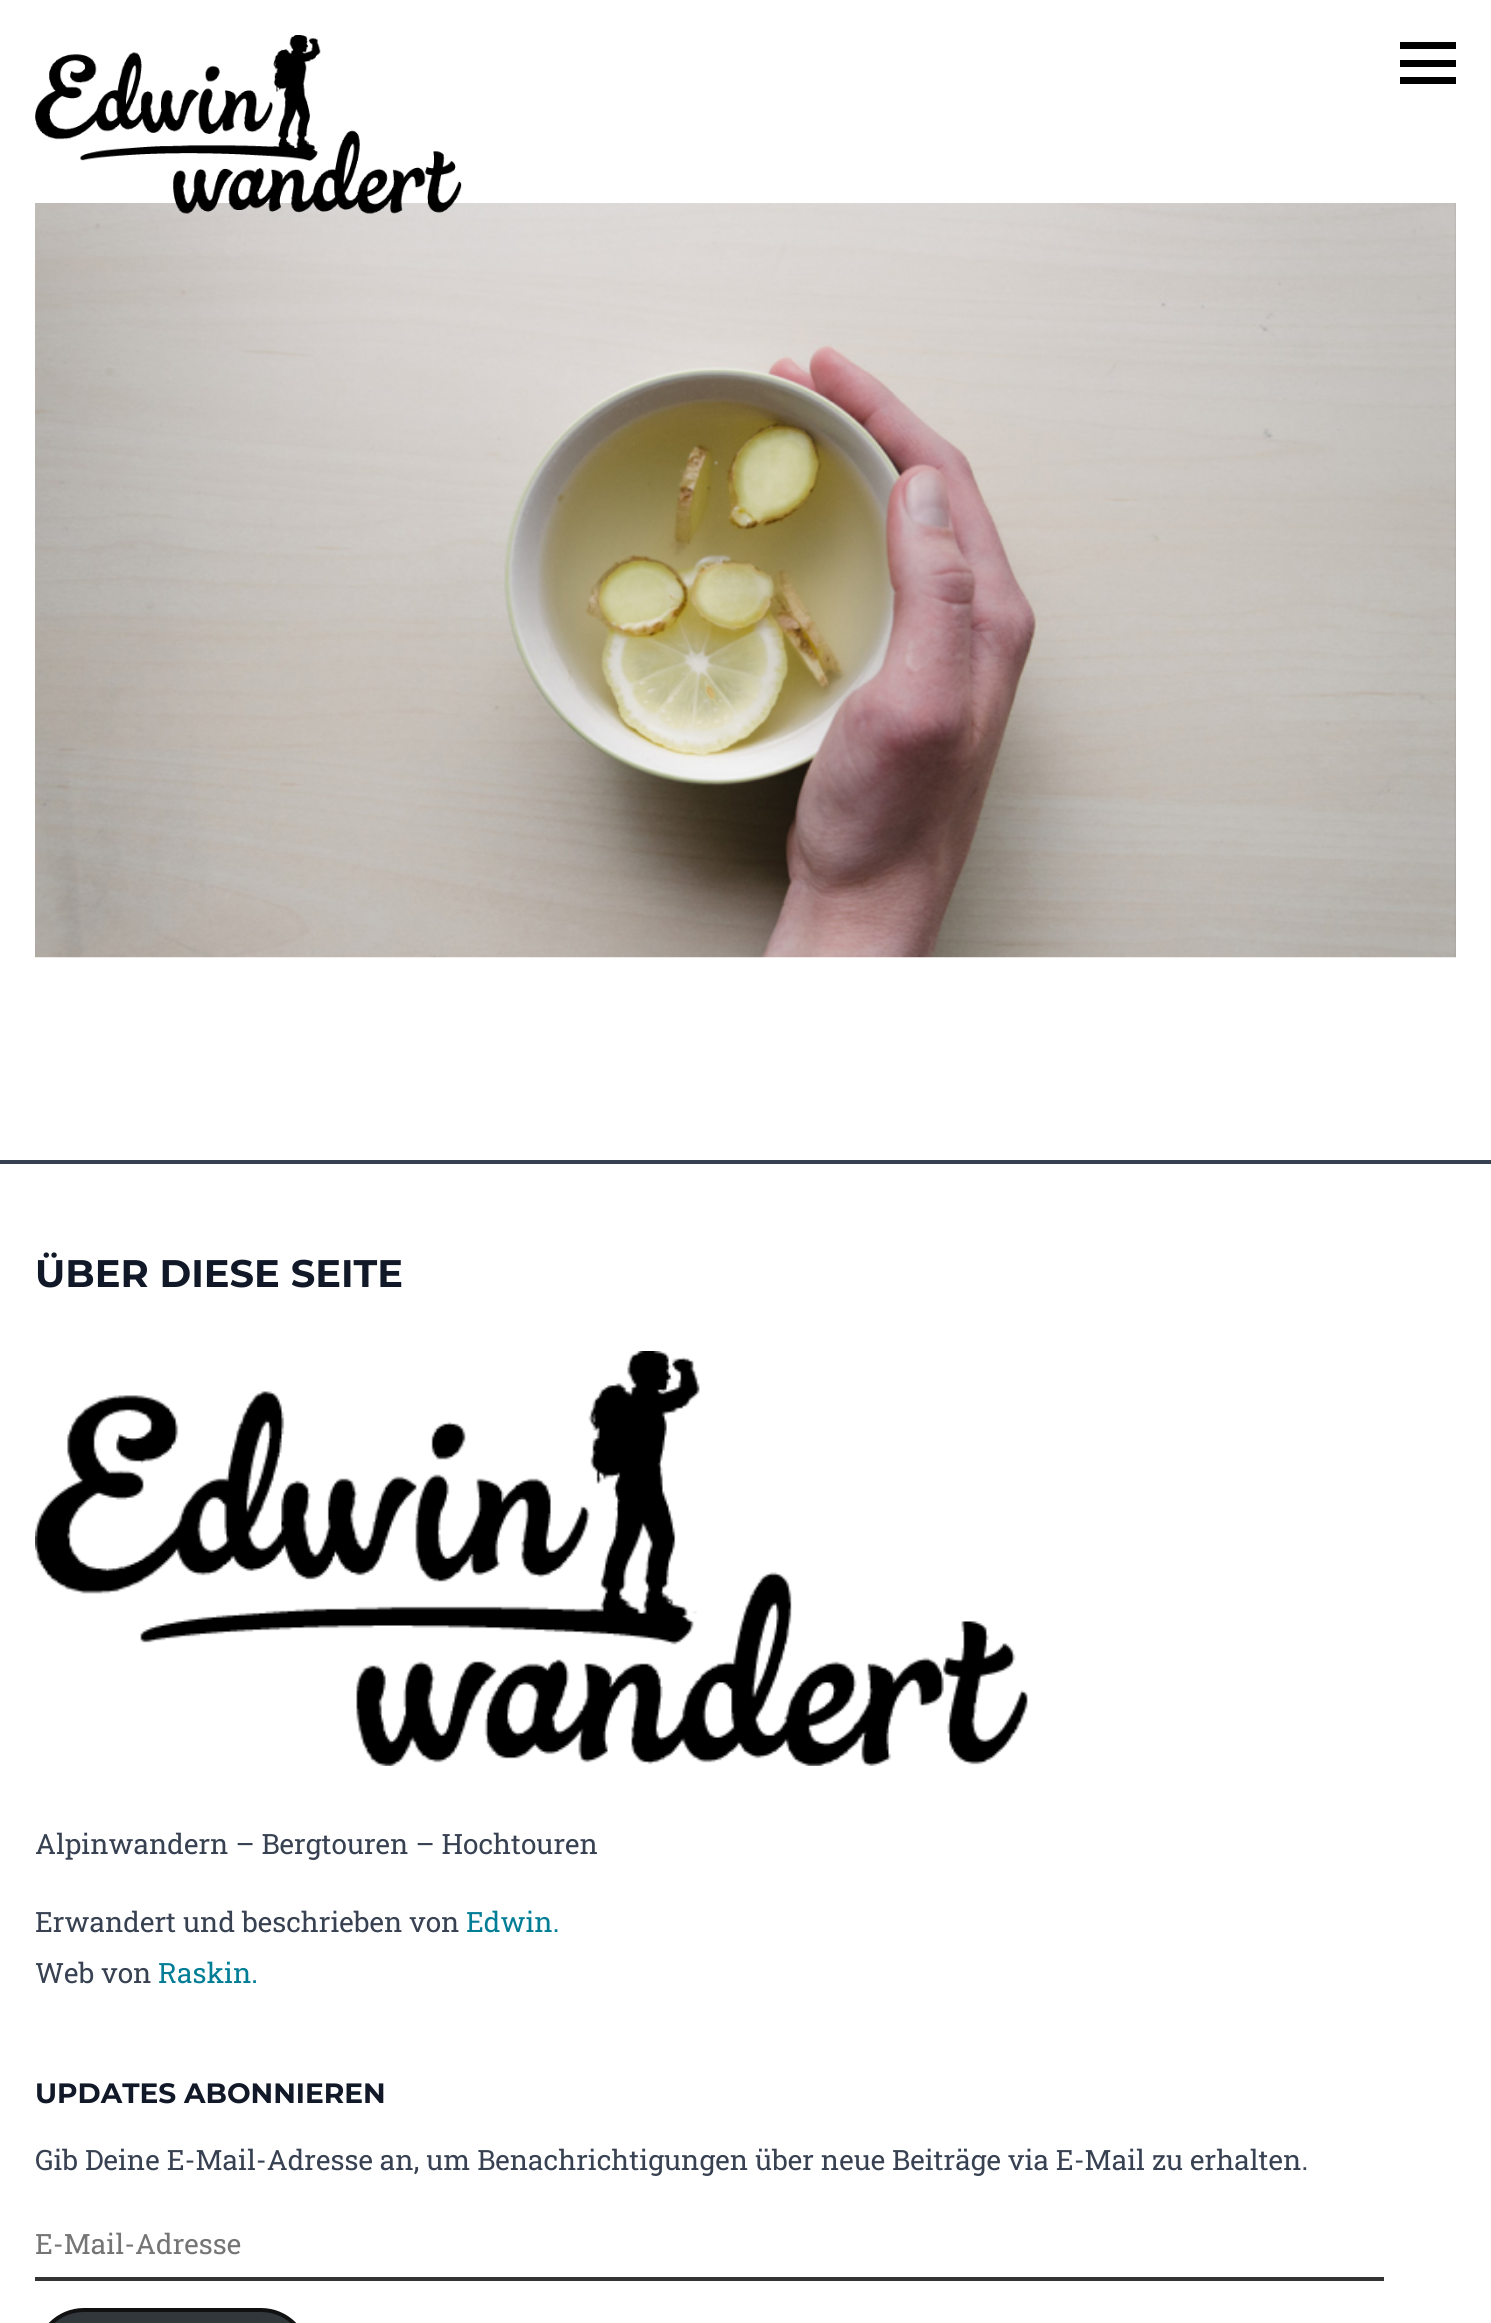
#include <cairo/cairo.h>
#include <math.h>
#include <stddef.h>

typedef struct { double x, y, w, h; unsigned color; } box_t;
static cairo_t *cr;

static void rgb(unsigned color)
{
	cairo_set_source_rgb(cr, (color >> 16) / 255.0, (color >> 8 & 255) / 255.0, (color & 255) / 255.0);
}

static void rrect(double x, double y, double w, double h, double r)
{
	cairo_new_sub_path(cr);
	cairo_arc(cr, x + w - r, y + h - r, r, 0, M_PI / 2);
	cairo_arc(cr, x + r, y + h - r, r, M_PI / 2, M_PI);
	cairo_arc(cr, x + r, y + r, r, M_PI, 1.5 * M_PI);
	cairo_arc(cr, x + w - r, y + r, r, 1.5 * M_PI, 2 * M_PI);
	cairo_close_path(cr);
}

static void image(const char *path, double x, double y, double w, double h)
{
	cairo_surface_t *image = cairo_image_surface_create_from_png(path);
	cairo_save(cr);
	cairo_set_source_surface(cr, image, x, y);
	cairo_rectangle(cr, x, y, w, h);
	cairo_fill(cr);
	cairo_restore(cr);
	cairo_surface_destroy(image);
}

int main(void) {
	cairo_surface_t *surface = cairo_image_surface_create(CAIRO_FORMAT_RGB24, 1491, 2323);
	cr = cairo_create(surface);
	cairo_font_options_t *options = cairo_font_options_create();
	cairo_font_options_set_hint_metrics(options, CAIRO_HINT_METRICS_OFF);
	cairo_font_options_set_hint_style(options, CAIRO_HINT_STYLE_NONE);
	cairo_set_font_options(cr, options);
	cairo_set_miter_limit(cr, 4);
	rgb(0xffffff);
	cairo_paint(cr);
	image("img/2.png", 35, 203, 1421, 755);
	image("img/1.png", 35, 35, 427, 179);
	{
		static const box_t items[] = {
			{1400, 60, 56, 7, 0x000000},
			{1400, 42, 56, 7, 0x000000},
			{1400, 77, 56, 7, 0x000000},
			{0, 1160, 1491, 4, 0x374151},
		};
		for (size_t i = 0; i < sizeof items / sizeof *items; i++) {
			rgb(items[i].color);
			cairo_rectangle(cr, items[i].x, items[i].y, items[i].w, items[i].h);
			cairo_fill(cr);
		}
	}
	image("img/3.png", 35, 1351, 993, 415);
	rgb(0x333333);
	cairo_rectangle(cr, 35, 2277, 1349, 4);
	cairo_fill(cr);
	rgb(0x32373c);
	rrect(37, 2310, 271, 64, 47);
	cairo_fill_preserve(cr);
	rgb(0x111112);
	cairo_set_line_width(cr, 4);
	cairo_stroke(cr);
	cairo_select_font_face(cr, "Montserrat", CAIRO_FONT_SLANT_NORMAL, CAIRO_FONT_WEIGHT_BOLD);
	cairo_set_font_size(cr, 38.4);
	rgb(0x111827);
	cairo_move_to(cr, 35, 1287);
	cairo_show_text(cr, "ÜBER DIESE SEITE");
	cairo_select_font_face(cr, "Roboto Slab", CAIRO_FONT_SLANT_NORMAL, CAIRO_FONT_WEIGHT_NORMAL);
	cairo_set_font_size(cr, 28);
	rgb(0x374151);
	cairo_move_to(cr, 35, 1854);
	cairo_show_text(cr, "Alpinwandern – Bergtouren – Hochtouren");
	cairo_move_to(cr, 35, 1932);
	cairo_show_text(cr, "Erwandert und beschrieben von");
	rgb(0x017d96);
	cairo_move_to(cr, 466, 1932);
	cairo_show_text(cr, "Edwin.");
	rgb(0x374151);
	cairo_move_to(cr, 35, 1983);
	cairo_show_text(cr, "Web von");
	rgb(0x017d96);
	cairo_move_to(cr, 158, 1983);
	cairo_show_text(cr, "Raskin.");
	cairo_select_font_face(cr, "Montserrat", CAIRO_FONT_SLANT_NORMAL, CAIRO_FONT_WEIGHT_BOLD);
	rgb(0x111827);
	cairo_move_to(cr, 35, 2103);
	cairo_show_text(cr, "UPDATES ABONNIEREN");
	cairo_select_font_face(cr, "Roboto Slab", CAIRO_FONT_SLANT_NORMAL, CAIRO_FONT_WEIGHT_NORMAL);
	rgb(0x374151);
	cairo_move_to(cr, 35, 2170);
	cairo_show_text(cr, "Gib Deine E-Mail-Adresse an, um Benachrichtigungen über neue Beiträge via E-Mail zu erhalten.");
	rgb(0x757575);
	cairo_move_to(cr, 35, 2254);
	cairo_show_text(cr, "E-Mail-Adresse");
	cairo_surface_write_to_png(surface, "page.png");
	cairo_font_options_destroy(options);
	cairo_destroy(cr);
	cairo_surface_destroy(surface);
	return 0;
}
